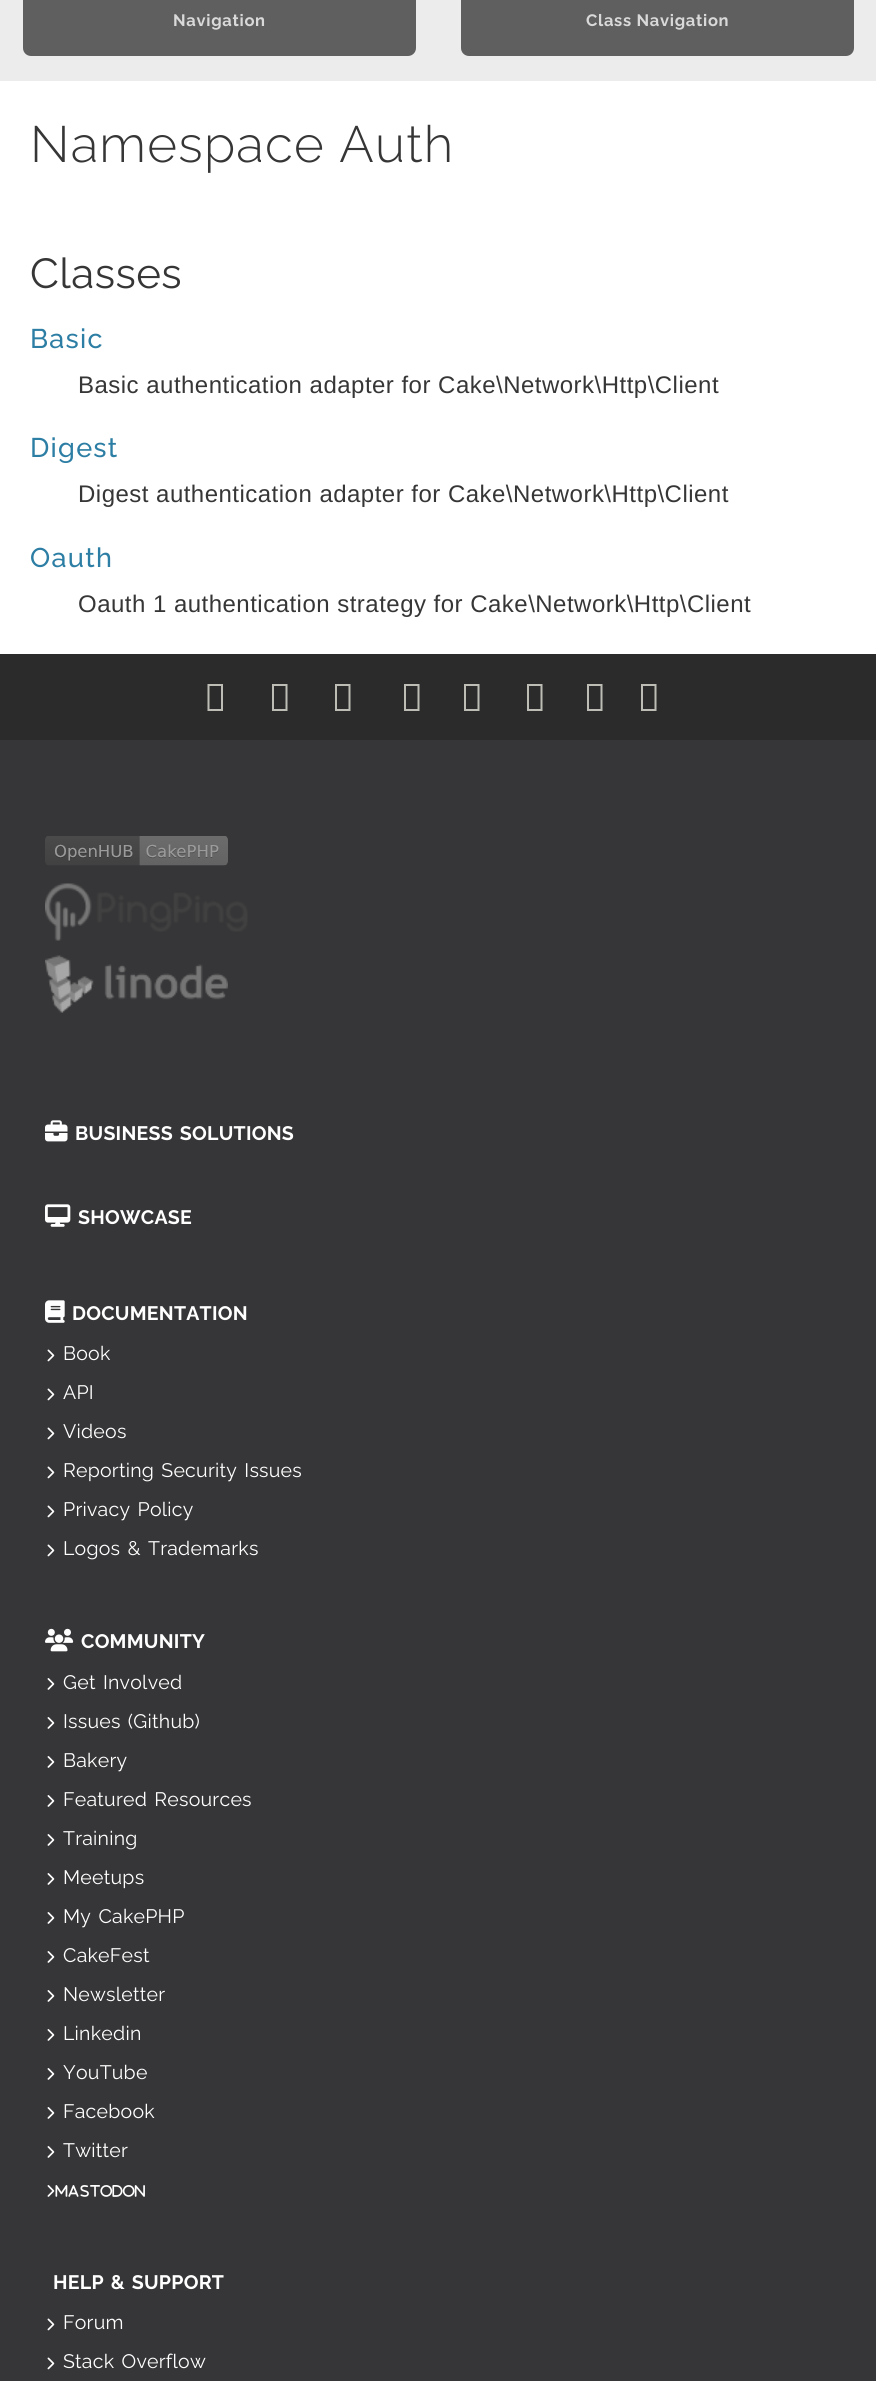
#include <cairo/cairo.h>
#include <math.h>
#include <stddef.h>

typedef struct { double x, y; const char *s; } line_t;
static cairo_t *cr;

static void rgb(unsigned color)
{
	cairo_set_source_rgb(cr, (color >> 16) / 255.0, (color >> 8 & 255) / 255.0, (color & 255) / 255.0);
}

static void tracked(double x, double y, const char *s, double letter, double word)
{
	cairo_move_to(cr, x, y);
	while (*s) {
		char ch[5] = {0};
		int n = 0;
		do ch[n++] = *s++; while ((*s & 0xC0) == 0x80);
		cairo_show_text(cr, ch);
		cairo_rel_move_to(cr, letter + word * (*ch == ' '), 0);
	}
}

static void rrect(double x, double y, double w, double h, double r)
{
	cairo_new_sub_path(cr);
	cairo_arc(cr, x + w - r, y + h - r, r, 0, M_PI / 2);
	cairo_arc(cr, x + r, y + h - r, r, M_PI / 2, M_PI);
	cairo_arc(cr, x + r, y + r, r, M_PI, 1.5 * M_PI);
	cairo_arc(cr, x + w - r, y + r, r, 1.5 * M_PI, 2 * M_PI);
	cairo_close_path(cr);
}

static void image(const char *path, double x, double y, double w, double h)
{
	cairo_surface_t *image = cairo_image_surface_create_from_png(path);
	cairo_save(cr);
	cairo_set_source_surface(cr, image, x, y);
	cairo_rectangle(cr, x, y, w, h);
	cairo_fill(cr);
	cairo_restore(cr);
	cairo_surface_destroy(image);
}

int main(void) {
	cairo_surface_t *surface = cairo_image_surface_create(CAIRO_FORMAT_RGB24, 876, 2381);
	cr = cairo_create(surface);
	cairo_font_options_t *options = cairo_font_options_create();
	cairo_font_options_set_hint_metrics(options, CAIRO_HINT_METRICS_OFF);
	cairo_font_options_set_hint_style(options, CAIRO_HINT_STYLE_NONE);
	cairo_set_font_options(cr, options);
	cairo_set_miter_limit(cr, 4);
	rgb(0xffffff);
	cairo_paint(cr);
	rgb(0xececec);
	cairo_rectangle(cr, 0, 0, 876, 81);
	cairo_fill(cr);
	rgb(0x5f5f5f);
	rrect(23, -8, 393, 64, 8);
	cairo_fill(cr);
	rrect(461, -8, 393, 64, 8);
	cairo_fill(cr);
	rgb(0x2b2b2b);
	cairo_rectangle(cr, 0, 654, 876, 86);
	cairo_fill(cr);
	rgb(0xbdbdb5);
	cairo_new_path(cr);
	cairo_move_to(cr, 207.5, 711);
	cairo_line_to(cr, 207.5, 684);
	cairo_line_to(cr, 223, 684);
	cairo_line_to(cr, 223, 711);
	cairo_close_path(cr);
	cairo_move_to(cr, 209.5, 709);
	cairo_line_to(cr, 221, 709);
	cairo_line_to(cr, 221, 686);
	cairo_line_to(cr, 209.5, 686);
	cairo_close_path(cr);
	cairo_fill(cr);
	cairo_new_path(cr);
	cairo_move_to(cr, 272, 711);
	cairo_line_to(cr, 272, 684);
	cairo_line_to(cr, 287.5, 684);
	cairo_line_to(cr, 287.5, 711);
	cairo_close_path(cr);
	cairo_move_to(cr, 274, 709);
	cairo_line_to(cr, 285.5, 709);
	cairo_line_to(cr, 285.5, 686);
	cairo_line_to(cr, 274, 686);
	cairo_close_path(cr);
	cairo_fill(cr);
	cairo_new_path(cr);
	cairo_move_to(cr, 335, 711);
	cairo_line_to(cr, 335, 684);
	cairo_line_to(cr, 350.5, 684);
	cairo_line_to(cr, 350.5, 711);
	cairo_close_path(cr);
	cairo_move_to(cr, 337, 709);
	cairo_line_to(cr, 348.5, 709);
	cairo_line_to(cr, 348.5, 686);
	cairo_line_to(cr, 337, 686);
	cairo_close_path(cr);
	cairo_fill(cr);
	cairo_new_path(cr);
	cairo_move_to(cr, 404, 711);
	cairo_line_to(cr, 404, 684);
	cairo_line_to(cr, 419.5, 684);
	cairo_line_to(cr, 419.5, 711);
	cairo_close_path(cr);
	cairo_move_to(cr, 406, 709);
	cairo_line_to(cr, 417.5, 709);
	cairo_line_to(cr, 417.5, 686);
	cairo_line_to(cr, 406, 686);
	cairo_close_path(cr);
	cairo_fill(cr);
	cairo_new_path(cr);
	cairo_move_to(cr, 464, 711);
	cairo_line_to(cr, 464, 684);
	cairo_line_to(cr, 479.5, 684);
	cairo_line_to(cr, 479.5, 711);
	cairo_close_path(cr);
	cairo_move_to(cr, 466, 709);
	cairo_line_to(cr, 477.5, 709);
	cairo_line_to(cr, 477.5, 686);
	cairo_line_to(cr, 466, 686);
	cairo_close_path(cr);
	cairo_fill(cr);
	cairo_new_path(cr);
	cairo_move_to(cr, 527, 711);
	cairo_line_to(cr, 527, 684);
	cairo_line_to(cr, 542.5, 684);
	cairo_line_to(cr, 542.5, 711);
	cairo_close_path(cr);
	cairo_move_to(cr, 529, 709);
	cairo_line_to(cr, 540.5, 709);
	cairo_line_to(cr, 540.5, 686);
	cairo_line_to(cr, 529, 686);
	cairo_close_path(cr);
	cairo_fill(cr);
	cairo_new_path(cr);
	cairo_move_to(cr, 587, 711);
	cairo_line_to(cr, 587, 684);
	cairo_line_to(cr, 602.5, 684);
	cairo_line_to(cr, 602.5, 711);
	cairo_close_path(cr);
	cairo_move_to(cr, 589, 709);
	cairo_line_to(cr, 600.5, 709);
	cairo_line_to(cr, 600.5, 686);
	cairo_line_to(cr, 589, 686);
	cairo_close_path(cr);
	cairo_fill(cr);
	cairo_new_path(cr);
	cairo_move_to(cr, 641, 711);
	cairo_line_to(cr, 641, 684);
	cairo_line_to(cr, 656.5, 684);
	cairo_line_to(cr, 656.5, 711);
	cairo_close_path(cr);
	cairo_move_to(cr, 643, 709);
	cairo_line_to(cr, 654.5, 709);
	cairo_line_to(cr, 654.5, 686);
	cairo_line_to(cr, 643, 686);
	cairo_close_path(cr);
	cairo_fill(cr);
	rgb(0x363638);
	cairo_rectangle(cr, 0, 740, 876, 1641);
	cairo_fill(cr);
	image("img/1.png", 45, 836, 183, 30);
	image("img/2.png", 45, 883, 203, 58);
	image("img/3.png", 45, 955, 183, 58);
	image("img/4.png", 45, 1120, 23, 22);
	image("img/5.png", 45, 1204, 26, 23);
	image("img/6.png", 45, 1300, 20, 23);
	image("img/7.png", 47, 1349, 8, 13);
	image("img/7.png", 47, 1388, 8, 13);
	image("img/7.png", 47, 1427, 8, 13);
	image("img/7.png", 47, 1466, 8, 13);
	image("img/7.png", 47, 1505, 8, 13);
	image("img/7.png", 47, 1544, 8, 13);
	image("img/8.png", 45, 1628, 29, 24);
	image("img/9.png", 47, 1678, 8, 12);
	image("img/9.png", 47, 1717, 8, 12);
	image("img/9.png", 47, 1756, 8, 12);
	image("img/9.png", 47, 1795, 8, 12);
	image("img/9.png", 47, 1834, 8, 12);
	image("img/9.png", 47, 1873, 8, 12);
	image("img/9.png", 47, 1912, 8, 12);
	image("img/9.png", 47, 1951, 8, 12);
	image("img/9.png", 47, 1990, 8, 12);
	image("img/9.png", 47, 2029, 8, 12);
	image("img/9.png", 47, 2068, 8, 12);
	image("img/9.png", 47, 2107, 8, 12);
	image("img/9.png", 47, 2146, 8, 12);
	image("img/9.png", 47, 2185, 8, 12);
	image("img/10.png", 55, 2185, 90, 12);
	image("img/7.png", 47, 2318, 8, 13);
	image("img/7.png", 47, 2357, 8, 13);
	cairo_select_font_face(cr, "Raleway", CAIRO_FONT_SLANT_NORMAL, CAIRO_FONT_WEIGHT_BOLD);
	cairo_set_font_size(cr, 16.5);
	rgb(0xd9d9d9);
	tracked(173, 26, "Navigation", 0.7, 0);
	tracked(586, 26, "Class Navigation", 0.7, 0);
	cairo_select_font_face(cr, "Raleway Light", CAIRO_FONT_SLANT_NORMAL, CAIRO_FONT_WEIGHT_NORMAL);
	cairo_set_font_size(cr, 51);
	rgb(0x363637);
	tracked(30, 162, "Namespace Auth", 1.25, 0);
	cairo_select_font_face(cr, "Raleway", CAIRO_FONT_SLANT_NORMAL, CAIRO_FONT_WEIGHT_NORMAL);
	cairo_set_font_size(cr, 42);
	tracked(30, 288, "Classes", 0.5, 0);
	cairo_select_font_face(cr, "Raleway Medium", CAIRO_FONT_SLANT_NORMAL, CAIRO_FONT_WEIGHT_NORMAL);
	cairo_set_font_size(cr, 27);
	rgb(0x2d7ea4);
	tracked(30, 348, "Basic", 1.25, 0);
	cairo_select_font_face(cr, "Liberation Sans", CAIRO_FONT_SLANT_NORMAL, CAIRO_FONT_WEIGHT_NORMAL);
	cairo_set_font_size(cr, 24);
	rgb(0x363637);
	tracked(78, 393, "Basic authentication adapter for Cake\\Network\\Http\\Client", 0.48, 0);
	cairo_select_font_face(cr, "Raleway Medium", CAIRO_FONT_SLANT_NORMAL, CAIRO_FONT_WEIGHT_NORMAL);
	cairo_set_font_size(cr, 27);
	rgb(0x2d7ea4);
	tracked(30, 457, "Digest", 1.25, 0);
	cairo_select_font_face(cr, "Liberation Sans", CAIRO_FONT_SLANT_NORMAL, CAIRO_FONT_WEIGHT_NORMAL);
	cairo_set_font_size(cr, 24);
	rgb(0x363637);
	tracked(78, 502, "Digest authentication adapter for Cake\\Network\\Http\\Client", 0.48, 0);
	cairo_select_font_face(cr, "Raleway Medium", CAIRO_FONT_SLANT_NORMAL, CAIRO_FONT_WEIGHT_NORMAL);
	cairo_set_font_size(cr, 27);
	rgb(0x2d7ea4);
	tracked(30, 567, "Oauth", 1.25, 0);
	cairo_select_font_face(cr, "Liberation Sans", CAIRO_FONT_SLANT_NORMAL, CAIRO_FONT_WEIGHT_NORMAL);
	cairo_set_font_size(cr, 24);
	rgb(0x363637);
	tracked(78, 612, "Oauth 1 authentication strategy for Cake\\Network\\Http\\Client", 0.48, 0);
	cairo_select_font_face(cr, "Raleway", CAIRO_FONT_SLANT_NORMAL, CAIRO_FONT_WEIGHT_BOLD);
	cairo_set_font_size(cr, 19.5);
	rgb(0xffffff);
	tracked(75, 1140, "BUSINESS SOLUTIONS", 0.25, 2);
	tracked(78, 1224, "SHOWCASE", 0.25, 0);
	tracked(72, 1320, "DOCUMENTATION", 0.25, 0);
	cairo_select_font_face(cr, "Raleway", CAIRO_FONT_SLANT_NORMAL, CAIRO_FONT_WEIGHT_NORMAL);
	{
		static const line_t items[] = {
			{63, 1360, "Book"},
			{63, 1399, "API"},
			{63, 1438, "Videos"},
		};
		for (size_t i = 0; i < sizeof items / sizeof *items; i++) {
			tracked(items[i].x, items[i].y, items[i].s, 0.25, 0);
		}
	}
	{
		static const line_t items[] = {
			{63, 1477, "Reporting Security Issues"},
			{63, 1516, "Privacy Policy"},
			{63, 1555, "Logos & Trademarks"},
		};
		for (size_t i = 0; i < sizeof items / sizeof *items; i++) {
			tracked(items[i].x, items[i].y, items[i].s, 0.25, 2);
		}
	}
	cairo_select_font_face(cr, "Raleway", CAIRO_FONT_SLANT_NORMAL, CAIRO_FONT_WEIGHT_BOLD);
	tracked(81, 1648, "COMMUNITY", 0.25, 0);
	cairo_select_font_face(cr, "Raleway", CAIRO_FONT_SLANT_NORMAL, CAIRO_FONT_WEIGHT_NORMAL);
	tracked(63, 1689, "Get Involved", 0.25, 2);
	tracked(63, 1728, "Issues (Github)", 0.25, 2);
	tracked(63, 1767, "Bakery", 0.25, 0);
	tracked(63, 1806, "Featured Resources", 0.25, 2);
	tracked(63, 1845, "Training", 0.25, 0);
	tracked(63, 1884, "Meetups", 0.25, 0);
	tracked(63, 1923, "My CakePHP", 0.25, 2);
	{
		static const line_t items[] = {
			{63, 1962, "CakeFest"},
			{63, 2001, "Newsletter"},
			{63, 2040, "Linkedin"},
			{63, 2079, "YouTube"},
			{63, 2118, "Facebook"},
			{63, 2157, "Twitter"},
		};
		for (size_t i = 0; i < sizeof items / sizeof *items; i++) {
			tracked(items[i].x, items[i].y, items[i].s, 0.25, 0);
		}
	}
	cairo_select_font_face(cr, "Raleway", CAIRO_FONT_SLANT_NORMAL, CAIRO_FONT_WEIGHT_BOLD);
	tracked(53, 2289, "HELP & SUPPORT", 0.25, 2);
	cairo_select_font_face(cr, "Raleway", CAIRO_FONT_SLANT_NORMAL, CAIRO_FONT_WEIGHT_NORMAL);
	tracked(63, 2329, "Forum", 0.25, 0);
	tracked(63, 2368, "Stack Overflow", 0.25, 2);
	cairo_surface_write_to_png(surface, "page.png");
	cairo_font_options_destroy(options);
	cairo_destroy(cr);
	cairo_surface_destroy(surface);
	return 0;
}
